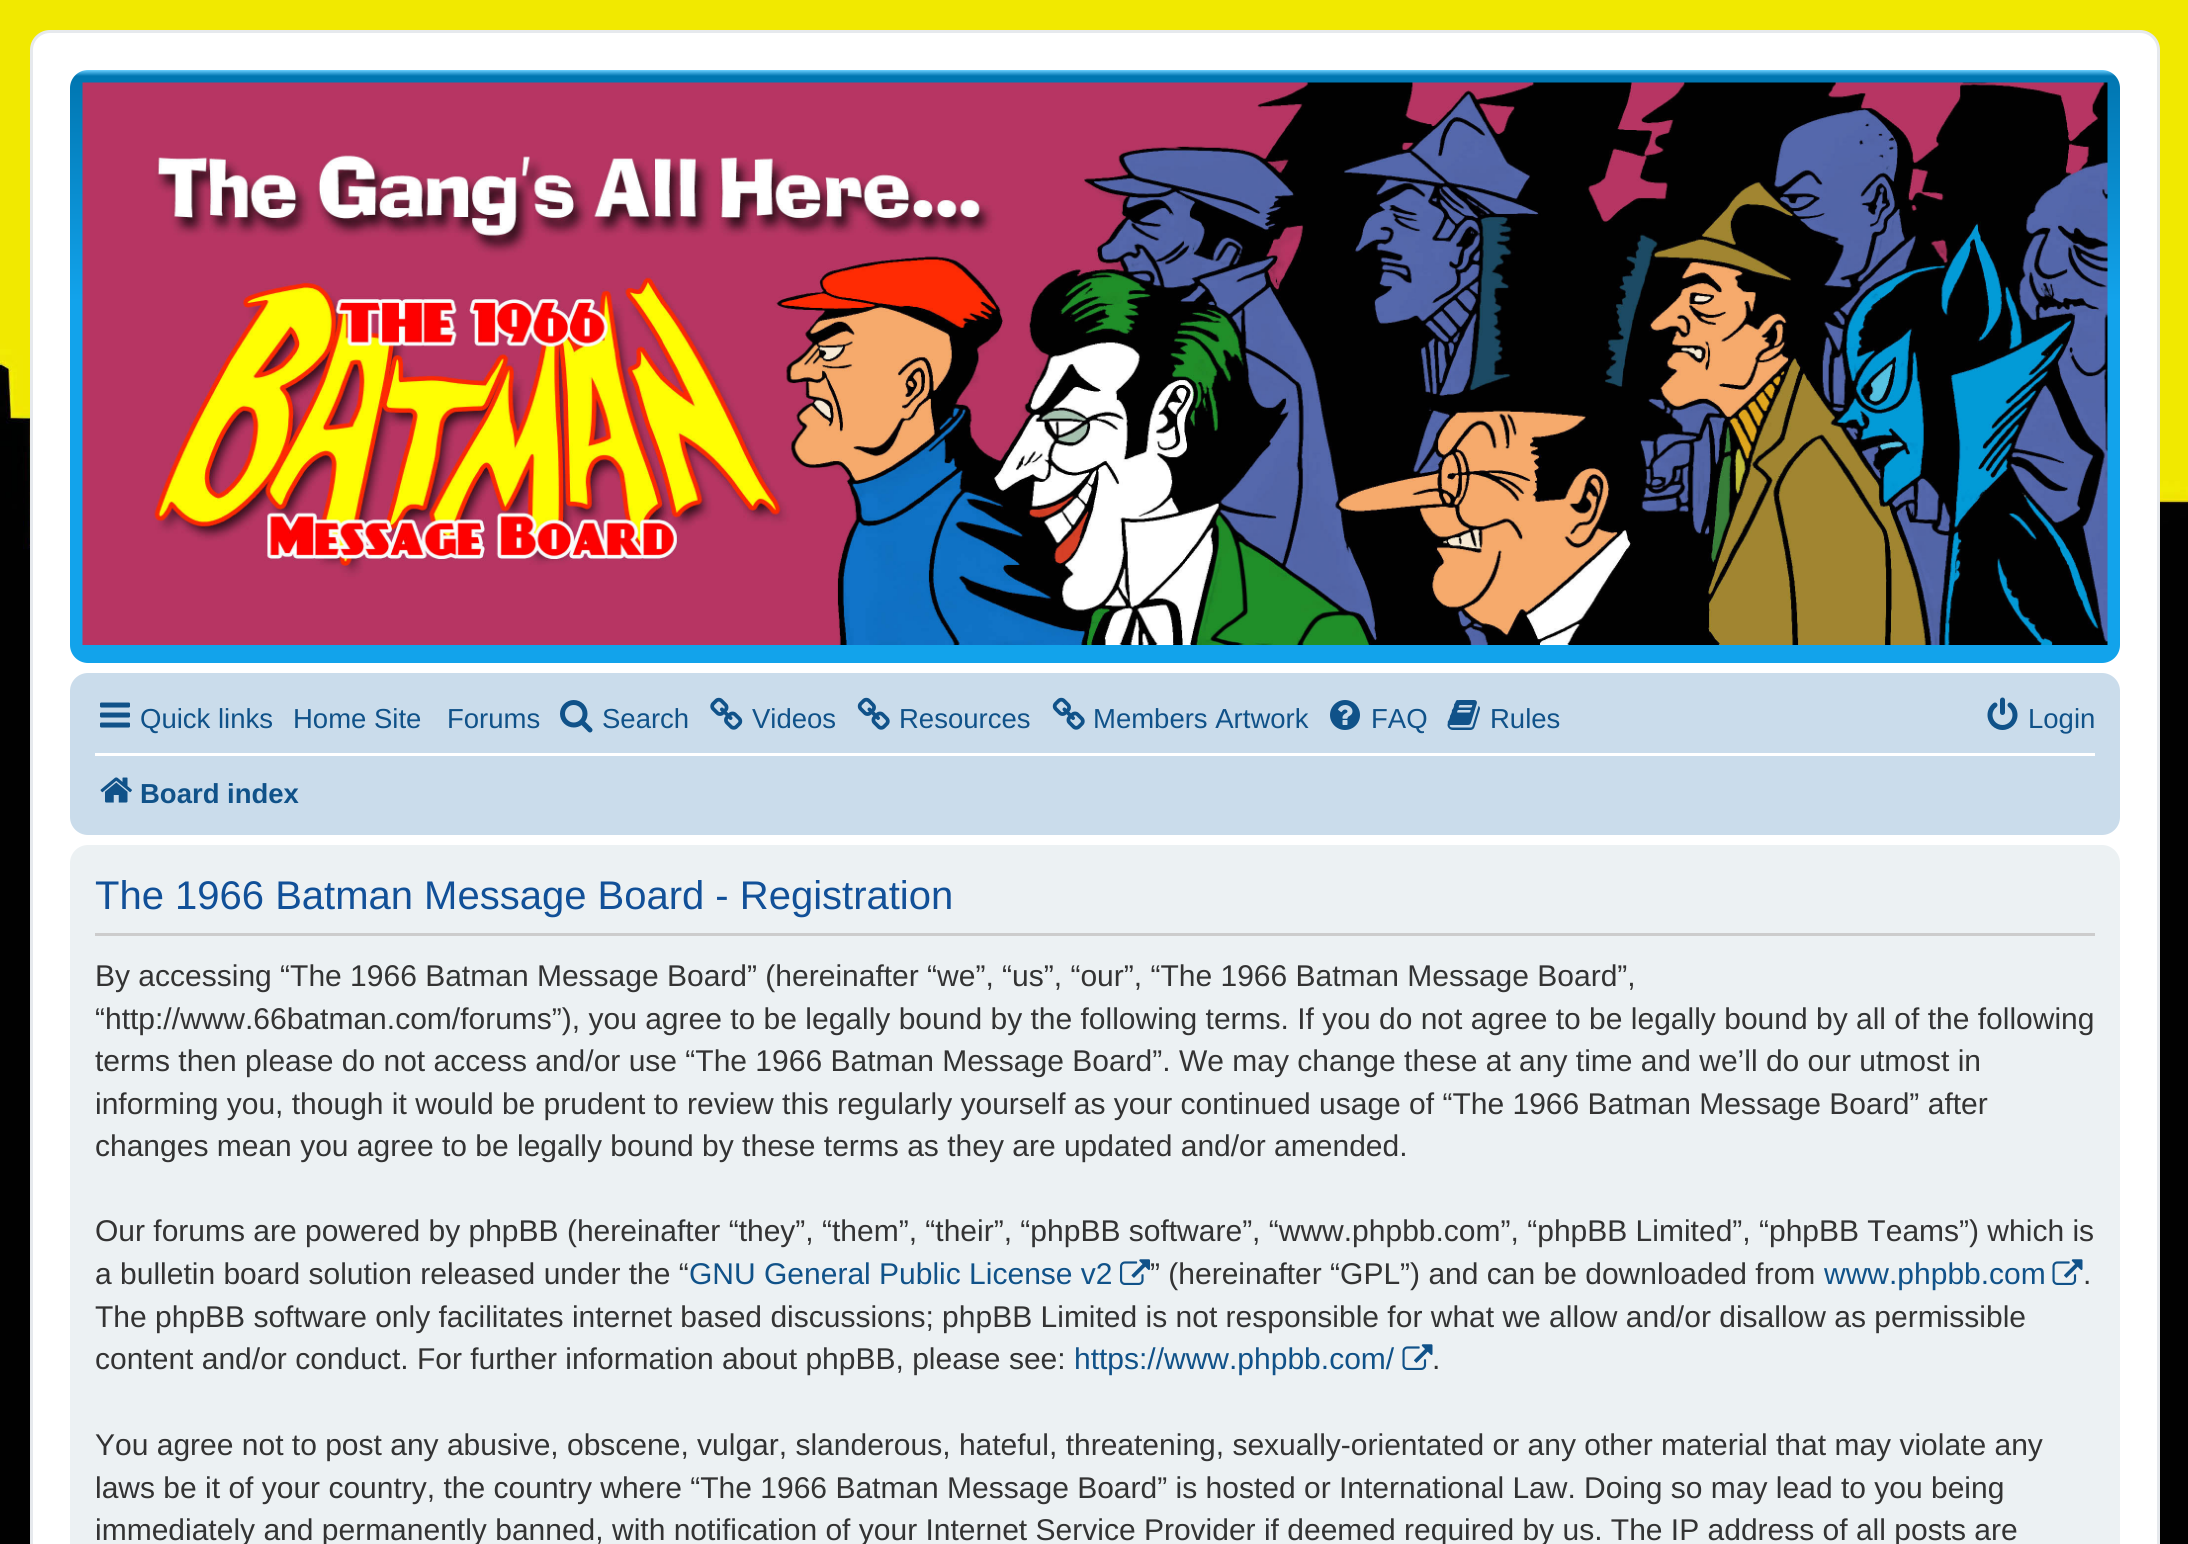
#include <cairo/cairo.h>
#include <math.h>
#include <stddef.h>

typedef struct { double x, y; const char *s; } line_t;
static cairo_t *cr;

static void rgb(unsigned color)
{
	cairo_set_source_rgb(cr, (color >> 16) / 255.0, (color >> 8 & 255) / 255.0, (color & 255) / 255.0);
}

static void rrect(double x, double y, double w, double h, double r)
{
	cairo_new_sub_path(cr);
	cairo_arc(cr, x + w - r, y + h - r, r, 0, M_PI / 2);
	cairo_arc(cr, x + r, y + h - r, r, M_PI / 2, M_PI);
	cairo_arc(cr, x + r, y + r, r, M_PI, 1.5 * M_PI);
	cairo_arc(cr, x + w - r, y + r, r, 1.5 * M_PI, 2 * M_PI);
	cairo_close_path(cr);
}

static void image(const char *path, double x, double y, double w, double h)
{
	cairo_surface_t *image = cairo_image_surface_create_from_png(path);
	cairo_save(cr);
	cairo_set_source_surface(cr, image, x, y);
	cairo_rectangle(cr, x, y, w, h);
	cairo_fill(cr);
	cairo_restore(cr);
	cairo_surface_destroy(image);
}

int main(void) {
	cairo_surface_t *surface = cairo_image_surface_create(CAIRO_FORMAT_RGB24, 2188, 1544);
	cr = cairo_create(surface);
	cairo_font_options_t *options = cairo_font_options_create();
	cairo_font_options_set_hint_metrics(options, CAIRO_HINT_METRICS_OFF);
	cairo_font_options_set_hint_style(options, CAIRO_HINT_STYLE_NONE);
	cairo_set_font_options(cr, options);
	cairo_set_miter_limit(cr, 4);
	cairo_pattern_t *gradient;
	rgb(0xffffff);
	cairo_paint(cr);
	image("img/1.png", 0, 0, 2188, 1544);
	rgb(0xffffff);
	rrect(31.5, 31.5, 2127, 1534, 18.5);
	cairo_fill_preserve(cr);
	rgb(0xe6e9ed);
	cairo_set_line_width(cr, 3);
	cairo_stroke(cr);
	gradient = cairo_pattern_create_linear(1095, 70, 1095, 663);
	cairo_pattern_add_color_stop_rgba(gradient, 0, 0.416, 0.808, 1, 1);
	cairo_pattern_add_color_stop_rgba(gradient, 0.01, 0, 0.463, 0.694, 1);
	cairo_pattern_add_color_stop_rgba(gradient, 0.39, 0.071, 0.639, 0.922, 1);
	cairo_pattern_add_color_stop_rgba(gradient, 1, 0.071, 0.639, 0.922, 1);
	cairo_set_source(cr, gradient);
	cairo_pattern_destroy(gradient);
	rrect(70, 70, 2050, 593, 18);
	cairo_fill(cr);
	image("img/2.png", 82, 82, 2026, 563);
	rgb(0xcadceb);
	rrect(70, 673, 2050, 162, 18);
	cairo_fill(cr);
	image("img/3.png", 100, 702, 30, 26);
	image("img/4.png", 560, 700, 33, 33);
	image("img/5.png", 710, 697, 33, 33);
	image("img/6.png", 857, 697, 33, 33);
	image("img/6.png", 1052, 697, 33, 33);
	image("img/7.png", 1330, 700, 30, 30);
	image("img/8.png", 1447, 700, 33, 30);
	image("img/9.png", 1987, 697, 31, 33);
	rgb(0xffffff);
	cairo_rectangle(cr, 95, 753, 2000, 3);
	cairo_fill(cr);
	image("img/10.png", 100, 777, 32, 26);
	rgb(0xecf1f3);
	rrect(70, 845, 2050, 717, 18);
	cairo_fill(cr);
	rgb(0xcccccc);
	cairo_rectangle(cr, 95, 933, 2000, 3);
	cairo_fill(cr);
	image("img/11.png", 1120, 1259, 30, 26);
	image("img/12.png", 2052, 1259, 31, 26);
	image("img/12.png", 1402, 1344, 31, 26);
	cairo_select_font_face(cr, "Liberation Sans", CAIRO_FONT_SLANT_NORMAL, CAIRO_FONT_WEIGHT_NORMAL);
	cairo_set_font_size(cr, 27.5);
	rgb(0x105289);
	{
		static const line_t items[] = {
			{140, 728, "Quick links"},
			{293, 728, "Home Site"},
			{447, 728, "Forums"},
			{602, 728, "Search"},
			{752, 728, "Videos"},
			{899, 728, "Resources"},
			{1093, 728, "Members Artwork"},
			{1371, 728, "FAQ"},
			{1490, 728, "Rules"},
			{2028, 728, "Login"},
		};
		for (size_t i = 0; i < sizeof items / sizeof *items; i++) {
			cairo_move_to(cr, items[i].x, items[i].y);
			cairo_show_text(cr, items[i].s);
		}
	}
	cairo_select_font_face(cr, "Liberation Sans", CAIRO_FONT_SLANT_NORMAL, CAIRO_FONT_WEIGHT_BOLD);
	cairo_move_to(cr, 140, 803);
	cairo_show_text(cr, "Board index");
	cairo_select_font_face(cr, "Liberation Sans", CAIRO_FONT_SLANT_NORMAL, CAIRO_FONT_WEIGHT_NORMAL);
	cairo_set_font_size(cr, 40);
	rgb(0x115098);
	cairo_move_to(cr, 95, 909);
	cairo_show_text(cr, "The 1966 Batman Message Board - Registration");
	cairo_set_font_size(cr, 30);
	rgb(0x333333);
	{
		static const line_t items[] = {
			{95, 986, "By accessing “The 1966 Batman Message Board” (hereinafter “we”, “us”, “our”, “The 1966 Batman Message Board”,"},
			{95, 1029, "“http://www.66batman.com/forums”), you agree to be legally bound by the following terms. If you do not agree to be legally bound by all of the following"},
			{95, 1071, "terms then please do not access and/or use “The 1966 Batman Message Board”. We may change these at any time and we’ll do our utmost in"},
			{95, 1114, "informing you, though it would be prudent to review this regularly yourself as your continued usage of “The 1966 Batman Message Board” after"},
			{95, 1156, "changes mean you agree to be legally bound by these terms as they are updated and/or amended."},
			{95, 1241, "Our forums are powered by phpBB (hereinafter “they”, “them”, “their”, “phpBB software”, “www.phpbb.com”, “phpBB Limited”, “phpBB Teams”) which is"},
			{95, 1284, "a bulletin board solution released under the “"},
		};
		for (size_t i = 0; i < sizeof items / sizeof *items; i++) {
			cairo_move_to(cr, items[i].x, items[i].y);
			cairo_show_text(cr, items[i].s);
		}
	}
	rgb(0x105289);
	cairo_move_to(cr, 689, 1284);
	cairo_show_text(cr, "GNU General Public License v2");
	rgb(0x333333);
	cairo_move_to(cr, 1150, 1284);
	cairo_show_text(cr, "” (hereinafter “GPL”) and can be downloaded from");
	rgb(0x105289);
	cairo_move_to(cr, 1824, 1284);
	cairo_show_text(cr, "www.phpbb.com");
	rgb(0x333333);
	{
		static const line_t items[] = {
			{2083, 1284, "."},
			{95, 1327, "The phpBB software only facilitates internet based discussions; phpBB Limited is not responsible for what we allow and/or disallow as permissible"},
			{95, 1369, "content and/or conduct. For further information about phpBB, please see:"},
		};
		for (size_t i = 0; i < sizeof items / sizeof *items; i++) {
			cairo_move_to(cr, items[i].x, items[i].y);
			cairo_show_text(cr, items[i].s);
		}
	}
	rgb(0x105289);
	cairo_move_to(cr, 1074, 1369);
	cairo_show_text(cr, "https://www.phpbb.com/");
	rgb(0x333333);
	{
		static const line_t items[] = {
			{1432, 1369, "."},
			{95, 1455, "You agree not to post any abusive, obscene, vulgar, slanderous, hateful, threatening, sexually-orientated or any other material that may violate any"},
			{95, 1498, "laws be it of your country, the country where “The 1966 Batman Message Board” is hosted or International Law. Doing so may lead to you being"},
			{95, 1540, "immediately and permanently banned, with notification of your Internet Service Provider if deemed required by us. The IP address of all posts are"},
		};
		for (size_t i = 0; i < sizeof items / sizeof *items; i++) {
			cairo_move_to(cr, items[i].x, items[i].y);
			cairo_show_text(cr, items[i].s);
		}
	}
	cairo_surface_write_to_png(surface, "page.png");
	cairo_font_options_destroy(options);
	cairo_destroy(cr);
	cairo_surface_destroy(surface);
	return 0;
}
